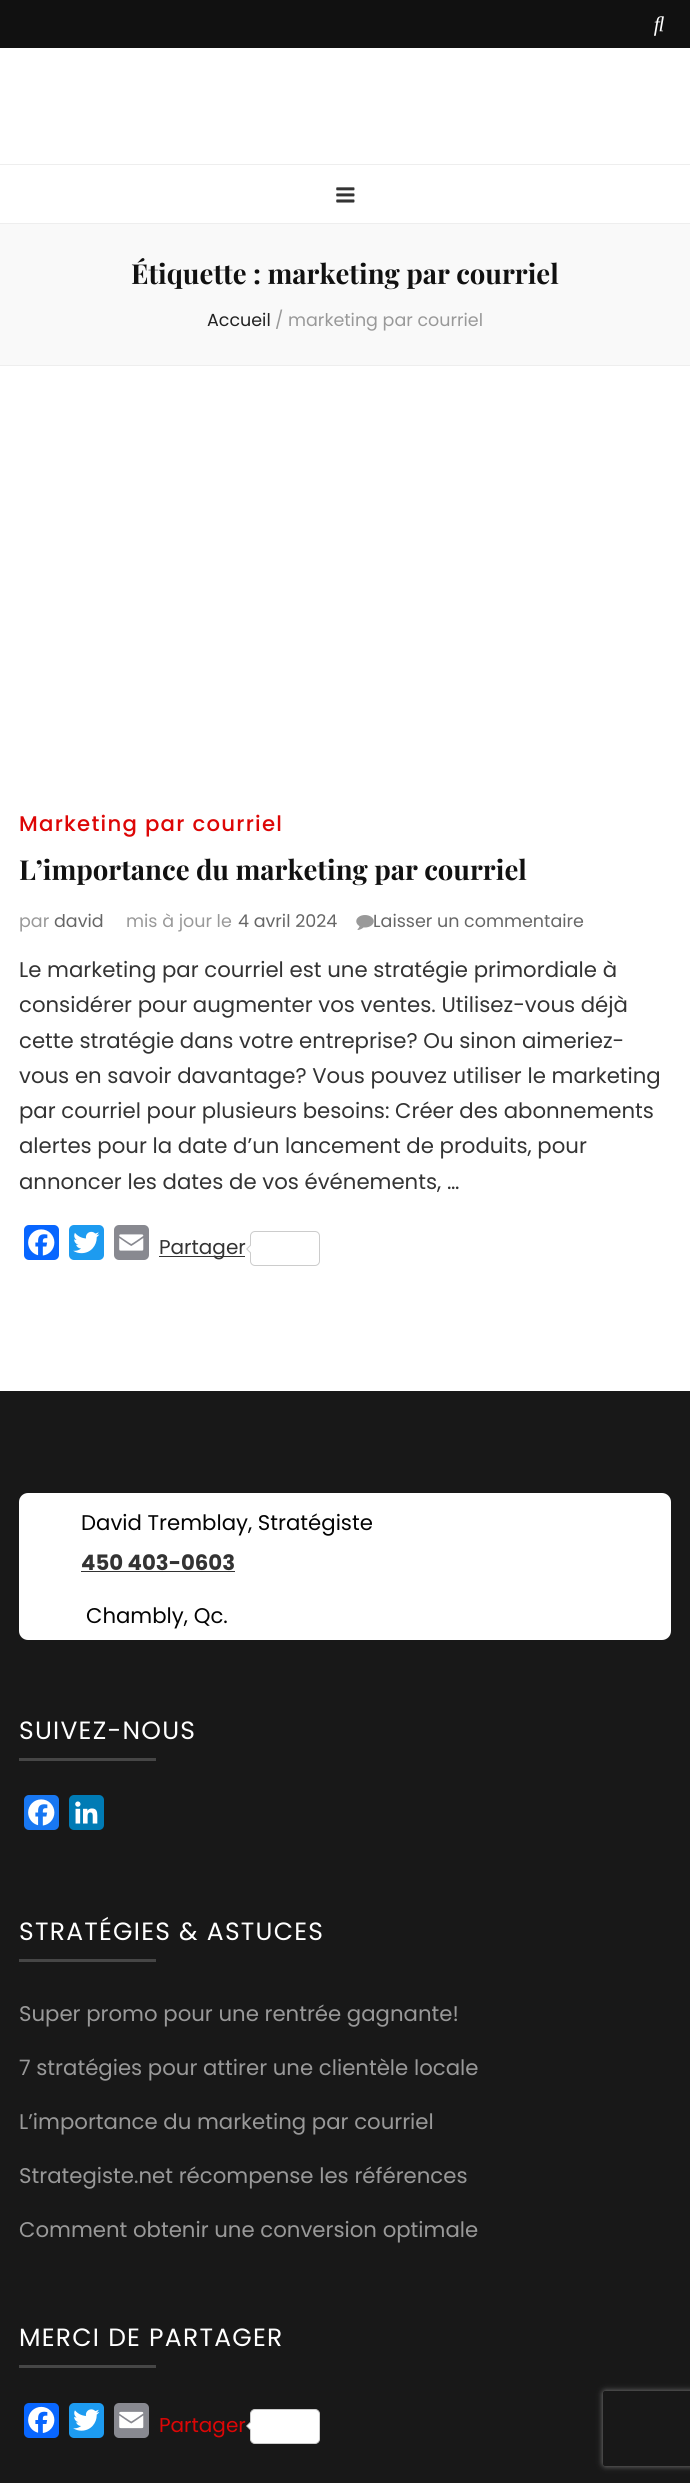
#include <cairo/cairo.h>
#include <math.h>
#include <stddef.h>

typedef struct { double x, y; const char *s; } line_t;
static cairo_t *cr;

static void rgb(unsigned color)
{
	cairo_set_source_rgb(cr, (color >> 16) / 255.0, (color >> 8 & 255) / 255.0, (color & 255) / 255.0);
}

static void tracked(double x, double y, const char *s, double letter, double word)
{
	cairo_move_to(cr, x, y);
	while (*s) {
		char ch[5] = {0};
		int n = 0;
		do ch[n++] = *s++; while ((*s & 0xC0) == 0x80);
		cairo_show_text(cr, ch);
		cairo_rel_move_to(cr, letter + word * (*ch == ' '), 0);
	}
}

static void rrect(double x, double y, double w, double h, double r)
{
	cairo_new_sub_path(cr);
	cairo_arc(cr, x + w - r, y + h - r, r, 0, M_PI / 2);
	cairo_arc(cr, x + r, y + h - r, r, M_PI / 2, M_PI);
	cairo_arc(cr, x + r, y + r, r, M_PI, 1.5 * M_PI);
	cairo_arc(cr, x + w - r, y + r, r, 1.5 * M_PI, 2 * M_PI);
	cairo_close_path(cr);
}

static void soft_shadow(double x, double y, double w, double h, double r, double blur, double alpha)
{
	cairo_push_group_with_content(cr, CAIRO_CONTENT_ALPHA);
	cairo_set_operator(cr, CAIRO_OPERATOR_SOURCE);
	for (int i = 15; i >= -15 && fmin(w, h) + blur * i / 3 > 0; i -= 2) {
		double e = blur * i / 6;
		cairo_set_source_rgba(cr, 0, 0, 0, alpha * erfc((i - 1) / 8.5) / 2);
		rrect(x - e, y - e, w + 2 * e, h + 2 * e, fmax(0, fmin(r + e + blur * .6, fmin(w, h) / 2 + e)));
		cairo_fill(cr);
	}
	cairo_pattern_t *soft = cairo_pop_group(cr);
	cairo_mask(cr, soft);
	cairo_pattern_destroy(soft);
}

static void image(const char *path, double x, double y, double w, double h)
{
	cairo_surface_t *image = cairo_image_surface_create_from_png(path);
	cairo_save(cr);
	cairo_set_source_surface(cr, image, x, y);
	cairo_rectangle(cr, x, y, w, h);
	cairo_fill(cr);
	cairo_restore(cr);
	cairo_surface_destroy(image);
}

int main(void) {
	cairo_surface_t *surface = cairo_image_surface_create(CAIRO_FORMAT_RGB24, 690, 2483);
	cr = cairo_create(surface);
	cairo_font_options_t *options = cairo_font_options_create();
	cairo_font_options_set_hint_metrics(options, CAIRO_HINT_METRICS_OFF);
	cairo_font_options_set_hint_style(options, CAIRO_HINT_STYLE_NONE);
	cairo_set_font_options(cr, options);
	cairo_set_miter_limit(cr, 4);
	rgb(0xffffff);
	cairo_paint(cr);
	rgb(0x111111);
	cairo_rectangle(cr, 0, 0, 690, 48);
	cairo_fill(cr);
	image("img/1.png", 654, 16, 10, 20);
	rgb(0xeeeeee);
	cairo_rectangle(cr, 0, 164, 690, 1);
	cairo_fill(cr);
	cairo_rectangle(cr, 0, 223, 690, 1);
	cairo_fill(cr);
	image("img/2.png", 336, 187, 19, 16);
	rgb(0xf9f9f9);
	cairo_rectangle(cr, 0, 224, 690, 141);
	cairo_fill(cr);
	rgb(0xeeeeee);
	cairo_rectangle(cr, 0, 365, 690, 1);
	cairo_fill(cr);
	image("img/3.png", 356, 915, 18, 15);
	rgb(0x0866ff);
	rrect(24, 1225, 35, 35, 5);
	cairo_fill(cr);
	image("img/4.png", 28, 1229, 27, 27);
	rgb(0x1d9bf0);
	rrect(69, 1225, 35, 35, 5);
	cairo_fill(cr);
	image("img/5.png", 73, 1231, 27, 23);
	rgb(0x888990);
	rrect(114, 1225, 35, 35, 5);
	cairo_fill(cr);
	image("img/6.png", 119, 1234, 25, 17);
	rgb(0x333333);
	cairo_rectangle(cr, 159, 1256, 86, 1);
	cairo_fill(cr);
	rrect(250.5, 1231.5, 69, 34, 4.5);
	rgb(0xcccccc);
	cairo_set_line_width(cr, 1);
	cairo_stroke(cr);
	cairo_new_path(cr);
	cairo_move_to(cr, 251, 1244);
	cairo_line_to(cr, 251, 1254);
	cairo_line_to(cr, 246, 1249);
	cairo_close_path(cr);
	cairo_fill(cr);
	rgb(0xffffff);
	cairo_new_path(cr);
	cairo_move_to(cr, 252.5, 1244);
	cairo_line_to(cr, 252.5, 1254);
	cairo_line_to(cr, 247.5, 1249);
	cairo_close_path(cr);
	cairo_fill(cr);
	rgb(0x181818);
	cairo_rectangle(cr, 0, 1391, 690, 1092);
	cairo_fill(cr);
	rgb(0xffffff);
	rrect(19, 1493, 652, 147, 9);
	cairo_fill(cr);
	rgb(0x333333);
	cairo_rectangle(cr, 81, 1571, 154, 1);
	cairo_fill(cr);
	rgb(0x464646);
	cairo_rectangle(cr, 19, 1758, 137, 3);
	cairo_fill(cr);
	rgb(0x1877f2);
	rrect(24, 1795, 35, 35, 5);
	cairo_fill(cr);
	image("img/7.png", 28, 1799, 27, 27);
	rgb(0x007bb5);
	rrect(69, 1795, 35, 35, 5);
	cairo_fill(cr);
	image("img/8.png", 75, 1801, 23, 23);
	rgb(0x464646);
	cairo_rectangle(cr, 19, 1959, 137, 3);
	cairo_fill(cr);
	cairo_rectangle(cr, 19, 2365, 137, 3);
	cairo_fill(cr);
	rgb(0x0866ff);
	rrect(24, 2403, 35, 35, 5);
	cairo_fill(cr);
	image("img/9.png", 28, 2406, 27, 27);
	rgb(0x1d9bf0);
	rrect(69, 2403, 35, 35, 5);
	cairo_fill(cr);
	image("img/10.png", 73, 2409, 27, 22);
	rgb(0x888990);
	rrect(114, 2403, 35, 35, 5);
	cairo_fill(cr);
	image("img/11.png", 119, 2411, 25, 18);
	rgb(0xffffff);
	rrect(250.5, 2409.5, 69, 34, 4.5);
	cairo_fill_preserve(cr);
	rgb(0xcccccc);
	cairo_stroke(cr);
	cairo_new_path(cr);
	cairo_move_to(cr, 251, 2421);
	cairo_line_to(cr, 251, 2431);
	cairo_line_to(cr, 246, 2426);
	cairo_close_path(cr);
	cairo_fill(cr);
	rgb(0xffffff);
	cairo_new_path(cr);
	cairo_move_to(cr, 252.5, 2421);
	cairo_line_to(cr, 252.5, 2431);
	cairo_line_to(cr, 247.5, 2426);
	cairo_close_path(cr);
	cairo_fill(cr);
	cairo_save(cr);
	cairo_set_fill_rule(cr, CAIRO_FILL_RULE_EVEN_ODD);
	cairo_new_path(cr);
	cairo_move_to(cr, 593, 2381);
	cairo_line_to(cr, 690, 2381);
	cairo_line_to(cr, 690, 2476);
	cairo_line_to(cr, 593, 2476);
	cairo_close_path(cr);
	cairo_move_to(cr, 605.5, 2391);
	cairo_line_to(cr, 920.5, 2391);
	cairo_curve_to(cr, 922, 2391, 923, 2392, 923, 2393.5);
	cairo_line_to(cr, 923, 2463.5);
	cairo_curve_to(cr, 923, 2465, 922, 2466, 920.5, 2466);
	cairo_line_to(cr, 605.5, 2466);
	cairo_curve_to(cr, 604, 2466, 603, 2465, 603, 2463.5);
	cairo_line_to(cr, 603, 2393.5);
	cairo_curve_to(cr, 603, 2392, 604, 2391, 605.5, 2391);
	cairo_close_path(cr);
	cairo_clip(cr);
	rgb(0x808080);
	soft_shadow(603, 2391, 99, 75, 2.5, 3, 1);
	cairo_restore(cr);
	cairo_select_font_face(cr, "Playfair Display", CAIRO_FONT_SLANT_NORMAL, CAIRO_FONT_WEIGHT_BOLD);
	cairo_set_font_size(cr, 27.5);
	rgb(0x111111);
	cairo_move_to(cr, 131, 284);
	cairo_show_text(cr, "Étiquette : marketing par courriel");
	cairo_select_font_face(cr, "Poppins", CAIRO_FONT_SLANT_NORMAL, CAIRO_FONT_WEIGHT_NORMAL);
	cairo_set_font_size(cr, 17.5);
	rgb(0x222222);
	cairo_move_to(cr, 207, 326);
	cairo_show_text(cr, "Accueil");
	rgb(0x999999);
	cairo_move_to(cr, 275, 326);
	cairo_show_text(cr, "/ marketing par courriel");
	cairo_select_font_face(cr, "Poppins Medium", CAIRO_FONT_SLANT_NORMAL, CAIRO_FONT_WEIGHT_NORMAL);
	cairo_set_font_size(cr, 21.25);
	rgb(0xdd0606);
	tracked(19, 831, "Marketing par courriel", 1.25, 0);
	cairo_select_font_face(cr, "Playfair Display", CAIRO_FONT_SLANT_NORMAL, CAIRO_FONT_WEIGHT_BOLD);
	cairo_set_font_size(cr, 27.5);
	rgb(0x111111);
	cairo_move_to(cr, 19, 880);
	cairo_show_text(cr, "L’importance du marketing par courriel");
	cairo_select_font_face(cr, "Poppins", CAIRO_FONT_SLANT_NORMAL, CAIRO_FONT_WEIGHT_NORMAL);
	cairo_set_font_size(cr, 17.5);
	rgb(0x999999);
	cairo_move_to(cr, 19, 927);
	cairo_show_text(cr, "par");
	rgb(0x666666);
	cairo_move_to(cr, 54, 927);
	cairo_show_text(cr, "david");
	rgb(0x999999);
	cairo_move_to(cr, 126, 927);
	cairo_show_text(cr, "mis à jour le");
	rgb(0x666666);
	cairo_move_to(cr, 238, 927);
	cairo_show_text(cr, "4 avril 2024");
	cairo_move_to(cr, 373, 927);
	cairo_show_text(cr, "Laisser un commentaire");
	cairo_set_font_size(cr, 21.25);
	rgb(0x333333);
	{
		static const line_t items[] = {
			{19, 977, "Le marketing par courriel est une stratégie primordiale à"},
			{19, 1012, "considérer pour augmenter vos ventes. Utilisez-vous déjà"},
			{19, 1048, "cette stratégie dans votre entreprise? Ou sinon aimeriez-"},
			{19, 1083, "vous en savoir davantage? Vous pouvez utiliser le marketing"},
			{19, 1118, "par courriel pour plusieurs besoins: Créer des abonnements"},
			{19, 1153, "alertes pour la date d’un lancement de produits, pour"},
			{19, 1189, "annoncer les dates de vos événements, …"},
		};
		for (size_t i = 0; i < sizeof items / sizeof *items; i++) {
			cairo_move_to(cr, items[i].x, items[i].y);
			cairo_show_text(cr, items[i].s);
		}
	}
	cairo_set_font_size(cr, 20);
	cairo_move_to(cr, 159, 1254);
	cairo_show_text(cr, "Partager");
	cairo_set_font_size(cr, 21.25);
	rgb(0x040404);
	cairo_move_to(cr, 81, 1530);
	cairo_show_text(cr, "David Tremblay, Stratégiste");
	cairo_select_font_face(cr, "Poppins", CAIRO_FONT_SLANT_NORMAL, CAIRO_FONT_WEIGHT_BOLD);
	rgb(0x333333);
	cairo_move_to(cr, 81, 1570);
	cairo_show_text(cr, "450 403-0603");
	cairo_select_font_face(cr, "Poppins", CAIRO_FONT_SLANT_NORMAL, CAIRO_FONT_WEIGHT_NORMAL);
	rgb(0x040404);
	cairo_move_to(cr, 86, 1623);
	cairo_show_text(cr, "Chambly, Qc.");
	cairo_set_font_size(cr, 25);
	rgb(0xffffff);
	tracked(19, 1739, "SUIVEZ-NOUS", 1.25, 0);
	tracked(19, 1940, "STRATÉGIES & ASTUCES", 1.25, 0);
	cairo_set_font_size(cr, 21.25);
	rgb(0x999999);
	{
		static const line_t items[] = {
			{19, 2021, "Super promo pour une rentrée gagnante!"},
			{19, 2075, "7 stratégies pour attirer une clientèle locale"},
			{19, 2129, "L’importance du marketing par courriel"},
			{19, 2183, "Strategiste.net récompense les références"},
			{19, 2237, "Comment obtenir une conversion optimale"},
		};
		for (size_t i = 0; i < sizeof items / sizeof *items; i++) {
			cairo_move_to(cr, items[i].x, items[i].y);
			cairo_show_text(cr, items[i].s);
		}
	}
	cairo_set_font_size(cr, 25);
	rgb(0xffffff);
	tracked(19, 2346, "MERCI DE PARTAGER", 1.25, 0);
	cairo_set_font_size(cr, 20);
	rgb(0xdd0606);
	cairo_move_to(cr, 159, 2432);
	cairo_show_text(cr, "Partager");
	cairo_surface_write_to_png(surface, "page.png");
	cairo_font_options_destroy(options);
	cairo_destroy(cr);
	cairo_surface_destroy(surface);
	return 0;
}
